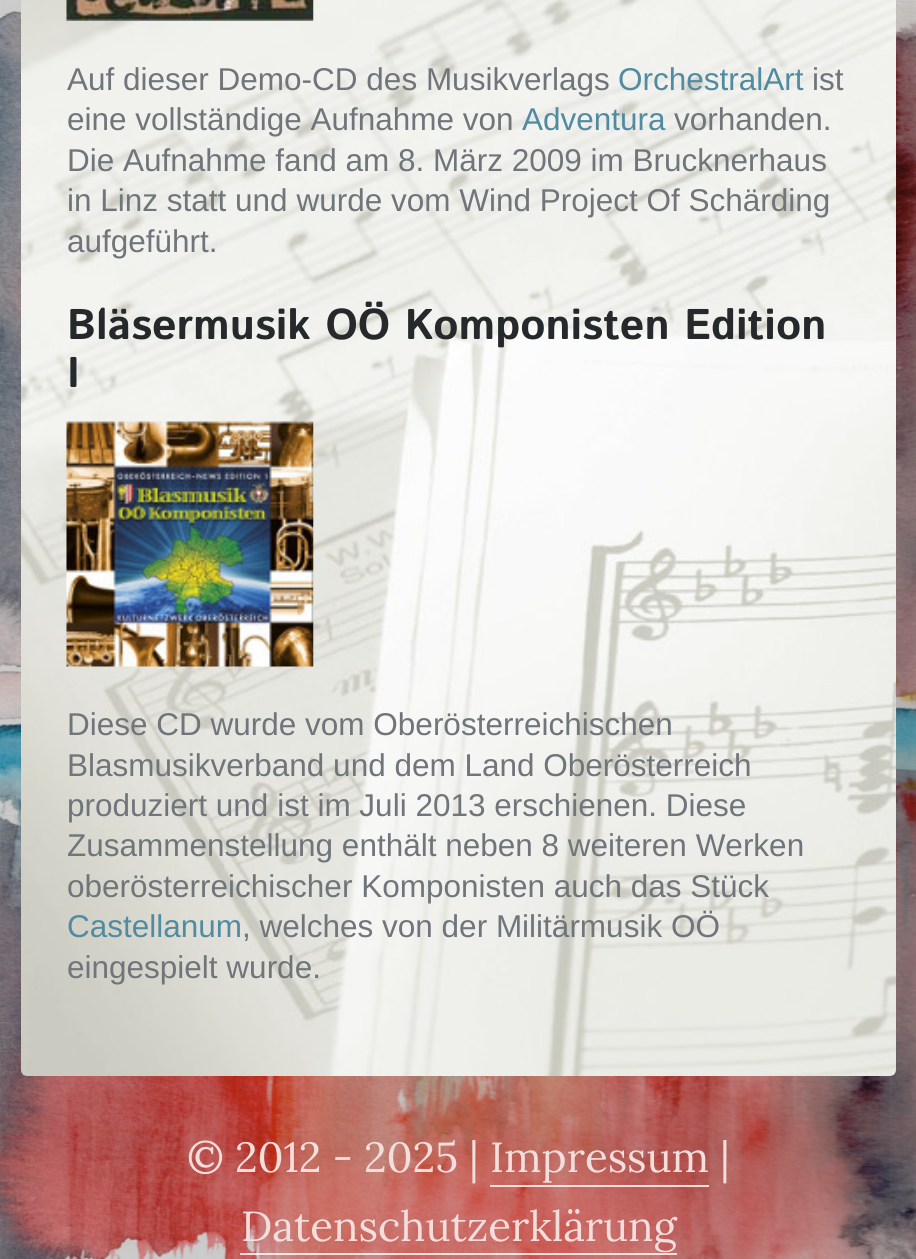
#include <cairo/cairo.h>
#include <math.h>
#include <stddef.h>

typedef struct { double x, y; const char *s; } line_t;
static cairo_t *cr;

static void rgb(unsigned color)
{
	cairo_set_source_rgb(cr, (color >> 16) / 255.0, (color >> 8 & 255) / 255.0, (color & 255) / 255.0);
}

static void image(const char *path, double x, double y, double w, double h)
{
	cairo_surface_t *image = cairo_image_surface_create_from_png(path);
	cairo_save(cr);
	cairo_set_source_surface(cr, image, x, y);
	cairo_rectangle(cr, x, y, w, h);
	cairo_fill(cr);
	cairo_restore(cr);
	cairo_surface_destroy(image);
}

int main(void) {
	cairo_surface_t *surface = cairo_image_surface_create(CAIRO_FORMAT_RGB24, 916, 1259);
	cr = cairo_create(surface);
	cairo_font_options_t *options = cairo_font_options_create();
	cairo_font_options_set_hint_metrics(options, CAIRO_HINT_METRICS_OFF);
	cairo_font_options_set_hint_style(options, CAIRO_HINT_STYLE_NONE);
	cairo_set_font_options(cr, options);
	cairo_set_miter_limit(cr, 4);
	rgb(0xffffff);
	cairo_paint(cr);
	image("img/1.png", 0, 0, 916, 1259);
	image("img/2.png", 21, 0, 875, 1076);
	image("img/3.png", 66, 0, 248, 21);
	image("img/4.png", 66, 421, 248, 246);
	cairo_set_source_rgba(cr, 1, 1, 1, 0.8);
	cairo_rectangle(cr, 490, 1185, 219, 2);
	cairo_fill(cr);
	cairo_rectangle(cr, 240, 1253, 437, 2);
	cairo_fill(cr);
	cairo_select_font_face(cr, "Liberation Sans", CAIRO_FONT_SLANT_NORMAL, CAIRO_FONT_WEIGHT_NORMAL);
	cairo_set_font_size(cr, 31.5);
	rgb(0x6f757a);
	cairo_move_to(cr, 67, 90);
	cairo_show_text(cr, "Auf dieser Demo-CD des Musikverlags");
	rgb(0x518ba1);
	cairo_move_to(cr, 618, 90);
	cairo_show_text(cr, "OrchestralArt");
	rgb(0x6f757a);
	cairo_move_to(cr, 812, 90);
	cairo_show_text(cr, "ist");
	cairo_move_to(cr, 67, 130);
	cairo_show_text(cr, "eine vollständige Aufnahme von");
	rgb(0x518ba1);
	cairo_move_to(cr, 522, 130);
	cairo_show_text(cr, "Adventura");
	rgb(0x6f757a);
	{
		static const line_t items[] = {
			{674, 130, "vorhanden."},
			{67, 171, "Die Aufnahme fand am 8. März 2009 im Brucknerhaus"},
			{67, 211, "in Linz statt und wurde vom Wind Project Of Schärding"},
			{67, 252, "aufgeführt."},
		};
		for (size_t i = 0; i < sizeof items / sizeof *items; i++) {
			cairo_move_to(cr, items[i].x, items[i].y);
			cairo_show_text(cr, items[i].s);
		}
	}
	cairo_select_font_face(cr, "Istok Web", CAIRO_FONT_SLANT_NORMAL, CAIRO_FONT_WEIGHT_BOLD);
	cairo_set_font_size(cr, 42.9);
	rgb(0x26292c);
	cairo_move_to(cr, 67, 339);
	cairo_show_text(cr, "Bläsermusik OÖ Komponisten Edition");
	cairo_move_to(cr, 67, 387);
	cairo_show_text(cr, "I");
	cairo_select_font_face(cr, "Liberation Sans", CAIRO_FONT_SLANT_NORMAL, CAIRO_FONT_WEIGHT_NORMAL);
	cairo_set_font_size(cr, 31.5);
	rgb(0x6f757a);
	{
		static const line_t items[] = {
			{67, 735, "Diese CD wurde vom Oberösterreichischen"},
			{67, 776, "Blasmusikverband und dem Land Oberösterreich"},
			{67, 816, "produziert und ist im Juli 2013 erschienen. Diese"},
			{67, 856, "Zusammenstellung enthält neben 8 weiteren Werken"},
			{67, 897, "oberösterreichischer Komponisten auch das Stück"},
		};
		for (size_t i = 0; i < sizeof items / sizeof *items; i++) {
			cairo_move_to(cr, items[i].x, items[i].y);
			cairo_show_text(cr, items[i].s);
		}
	}
	rgb(0x518ba1);
	cairo_move_to(cr, 67, 937);
	cairo_show_text(cr, "Castellanum");
	rgb(0x6f757a);
	cairo_move_to(cr, 242, 937);
	cairo_show_text(cr, ", welches von der Militärmusik OÖ");
	cairo_move_to(cr, 67, 978);
	cairo_show_text(cr, "eingespielt wurde.");
	cairo_select_font_face(cr, "Lora", CAIRO_FONT_SLANT_NORMAL, CAIRO_FONT_WEIGHT_NORMAL);
	cairo_set_font_size(cr, 42);
	rgb(0xf2dfdd);
	{
		static const line_t items[] = {
			{187, 1172, "© 2012 - 2025 |"},
			{490, 1172, "Impressum"},
			{720, 1172, "|"},
			{241, 1241, "Datenschutzerklärung"},
		};
		for (size_t i = 0; i < sizeof items / sizeof *items; i++) {
			cairo_move_to(cr, items[i].x, items[i].y);
			cairo_show_text(cr, items[i].s);
		}
	}
	cairo_surface_write_to_png(surface, "page.png");
	cairo_font_options_destroy(options);
	cairo_destroy(cr);
	cairo_surface_destroy(surface);
	return 0;
}
